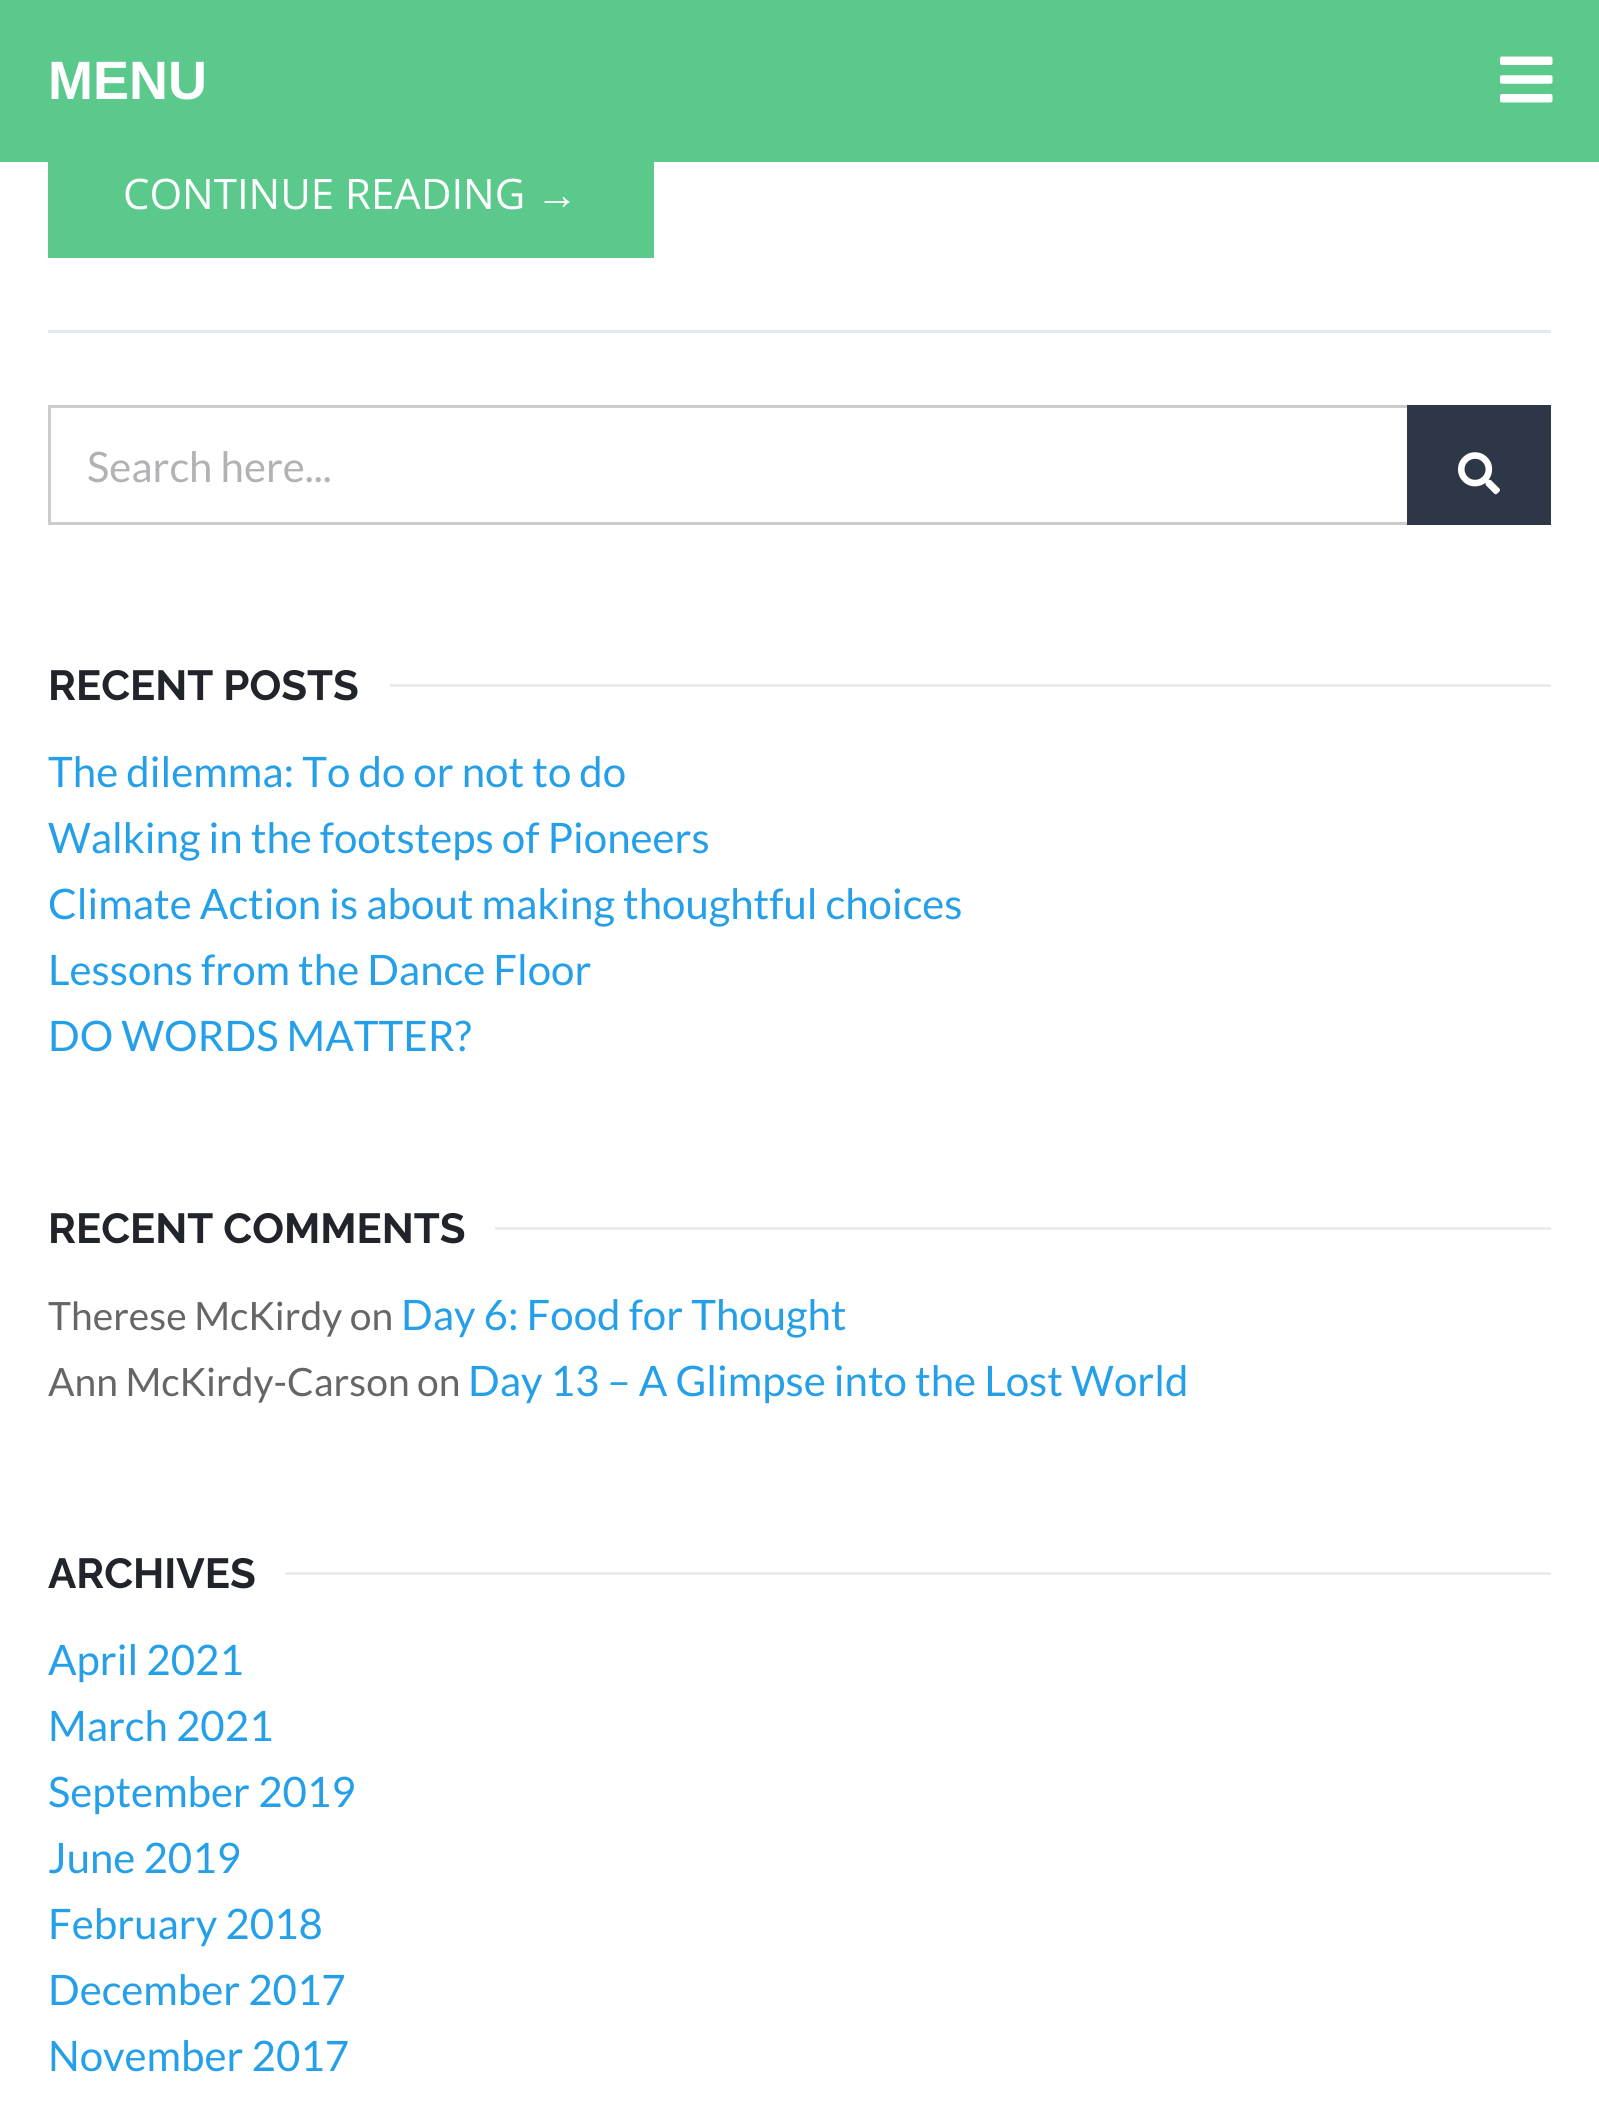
#include <cairo/cairo.h>
#include <math.h>
#include <stddef.h>

typedef struct { double x, y; const char *s; } line_t;
typedef struct { double x, y, w, h; unsigned color; } box_t;
static cairo_t *cr;

static void rgb(unsigned color)
{
	cairo_set_source_rgb(cr, (color >> 16) / 255.0, (color >> 8 & 255) / 255.0, (color & 255) / 255.0);
}

static void image(const char *path, double x, double y, double w, double h)
{
	cairo_surface_t *image = cairo_image_surface_create_from_png(path);
	cairo_save(cr);
	cairo_set_source_surface(cr, image, x, y);
	cairo_rectangle(cr, x, y, w, h);
	cairo_fill(cr);
	cairo_restore(cr);
	cairo_surface_destroy(image);
}

int main(void) {
	cairo_surface_t *surface = cairo_image_surface_create(CAIRO_FORMAT_RGB24, 1599, 2110);
	cr = cairo_create(surface);
	cairo_font_options_t *options = cairo_font_options_create();
	cairo_font_options_set_hint_metrics(options, CAIRO_HINT_METRICS_OFF);
	cairo_font_options_set_hint_style(options, CAIRO_HINT_STYLE_NONE);
	cairo_set_font_options(cr, options);
	cairo_set_miter_limit(cr, 4);
	rgb(0xffffff);
	cairo_paint(cr);
	rgb(0x5bc98c);
	cairo_rectangle(cr, 0, 0, 1599, 162);
	cairo_fill(cr);
	image("img/1.png", 1500, 56, 53, 47);
	rgb(0xe2e8f0);
	cairo_rectangle(cr, 48, 330, 1503, 3);
	cairo_fill(cr);
	rgb(0x5bc98c);
	cairo_rectangle(cr, 48, 162, 606, 96);
	cairo_fill(cr);
	cairo_rectangle(cr, 49.5, 406.5, 1500, 117);
	rgb(0xcccccc);
	cairo_set_line_width(cr, 3);
	cairo_stroke(cr);
	rgb(0x2d3748);
	cairo_rectangle(cr, 1407, 405, 144, 120);
	cairo_fill(cr);
	image("img/2.png", 1458, 452, 42, 43);
	{
		static const box_t items[] = {
			{390, 684, 1161, 3, 0xececec},
			{495, 1227, 1056, 3, 0xececec},
			{285, 1572, 1266, 3, 0xececec},
		};
		for (size_t i = 0; i < sizeof items / sizeof *items; i++) {
			rgb(items[i].color);
			cairo_rectangle(cr, items[i].x, items[i].y, items[i].w, items[i].h);
			cairo_fill(cr);
		}
	}
	cairo_select_font_face(cr, "Liberation Sans", CAIRO_FONT_SLANT_NORMAL, CAIRO_FONT_WEIGHT_BOLD);
	cairo_set_font_size(cr, 54);
	rgb(0xffffff);
	cairo_move_to(cr, 48, 99);
	cairo_show_text(cr, "MENU");
	cairo_select_font_face(cr, "Open Sans", CAIRO_FONT_SLANT_NORMAL, CAIRO_FONT_WEIGHT_NORMAL);
	cairo_set_font_size(cr, 42);
	cairo_move_to(cr, 123, 209);
	cairo_show_text(cr, "CONTINUE READING");
	cairo_select_font_face(cr, "Liberation Sans", CAIRO_FONT_SLANT_NORMAL, CAIRO_FONT_WEIGHT_NORMAL);
	cairo_move_to(cr, 536, 209);
	cairo_show_text(cr, "→");
	cairo_select_font_face(cr, "Lato", CAIRO_FONT_SLANT_NORMAL, CAIRO_FONT_WEIGHT_NORMAL);
	rgb(0xb2b2b6);
	cairo_move_to(cr, 87, 482);
	cairo_show_text(cr, "Search here...");
	cairo_select_font_face(cr, "Raleway", CAIRO_FONT_SLANT_NORMAL, CAIRO_FONT_WEIGHT_BOLD);
	rgb(0x21252b);
	cairo_move_to(cr, 48, 700);
	cairo_show_text(cr, "RECENT POSTS");
	cairo_select_font_face(cr, "Lato", CAIRO_FONT_SLANT_NORMAL, CAIRO_FONT_WEIGHT_NORMAL);
	rgb(0x25a0e8);
	{
		static const line_t items[] = {
			{48, 787, "The dilemma: To do or not to do"},
			{48, 853, "Walking in the footsteps of Pioneers"},
			{48, 919, "Climate Action is about making thoughtful choices"},
			{48, 985, "Lessons from the Dance Floor"},
			{48, 1051, "DO WORDS MATTER?"},
		};
		for (size_t i = 0; i < sizeof items / sizeof *items; i++) {
			cairo_move_to(cr, items[i].x, items[i].y);
			cairo_show_text(cr, items[i].s);
		}
	}
	cairo_select_font_face(cr, "Raleway", CAIRO_FONT_SLANT_NORMAL, CAIRO_FONT_WEIGHT_BOLD);
	rgb(0x21252b);
	cairo_move_to(cr, 48, 1243);
	cairo_show_text(cr, "RECENT COMMENTS");
	cairo_select_font_face(cr, "Lato", CAIRO_FONT_SLANT_NORMAL, CAIRO_FONT_WEIGHT_NORMAL);
	cairo_set_font_size(cr, 39);
	rgb(0x666666);
	cairo_move_to(cr, 48, 1330);
	cairo_show_text(cr, "Therese McKirdy on");
	cairo_set_font_size(cr, 42);
	rgb(0x25a0e8);
	cairo_move_to(cr, 401, 1330);
	cairo_show_text(cr, "Day 6: Food for Thought");
	cairo_set_font_size(cr, 39);
	rgb(0x666666);
	cairo_move_to(cr, 48, 1396);
	cairo_show_text(cr, "Ann McKirdy-Carson on");
	cairo_set_font_size(cr, 42);
	rgb(0x25a0e8);
	cairo_move_to(cr, 468, 1396);
	cairo_show_text(cr, "Day 13 – A Glimpse into the Lost World");
	cairo_select_font_face(cr, "Raleway", CAIRO_FONT_SLANT_NORMAL, CAIRO_FONT_WEIGHT_BOLD);
	rgb(0x21252b);
	cairo_move_to(cr, 48, 1588);
	cairo_show_text(cr, "ARCHIVES");
	cairo_select_font_face(cr, "Lato", CAIRO_FONT_SLANT_NORMAL, CAIRO_FONT_WEIGHT_NORMAL);
	rgb(0x25a0e8);
	{
		static const line_t items[] = {
			{48, 1675, "April 2021"},
			{48, 1741, "March 2021"},
			{48, 1807, "September 2019"},
			{48, 1873, "June 2019"},
			{48, 1939, "February 2018"},
			{48, 2005, "December 2017"},
			{48, 2071, "November 2017"},
		};
		for (size_t i = 0; i < sizeof items / sizeof *items; i++) {
			cairo_move_to(cr, items[i].x, items[i].y);
			cairo_show_text(cr, items[i].s);
		}
	}
	cairo_surface_write_to_png(surface, "page.png");
	cairo_font_options_destroy(options);
	cairo_destroy(cr);
	cairo_surface_destroy(surface);
	return 0;
}
